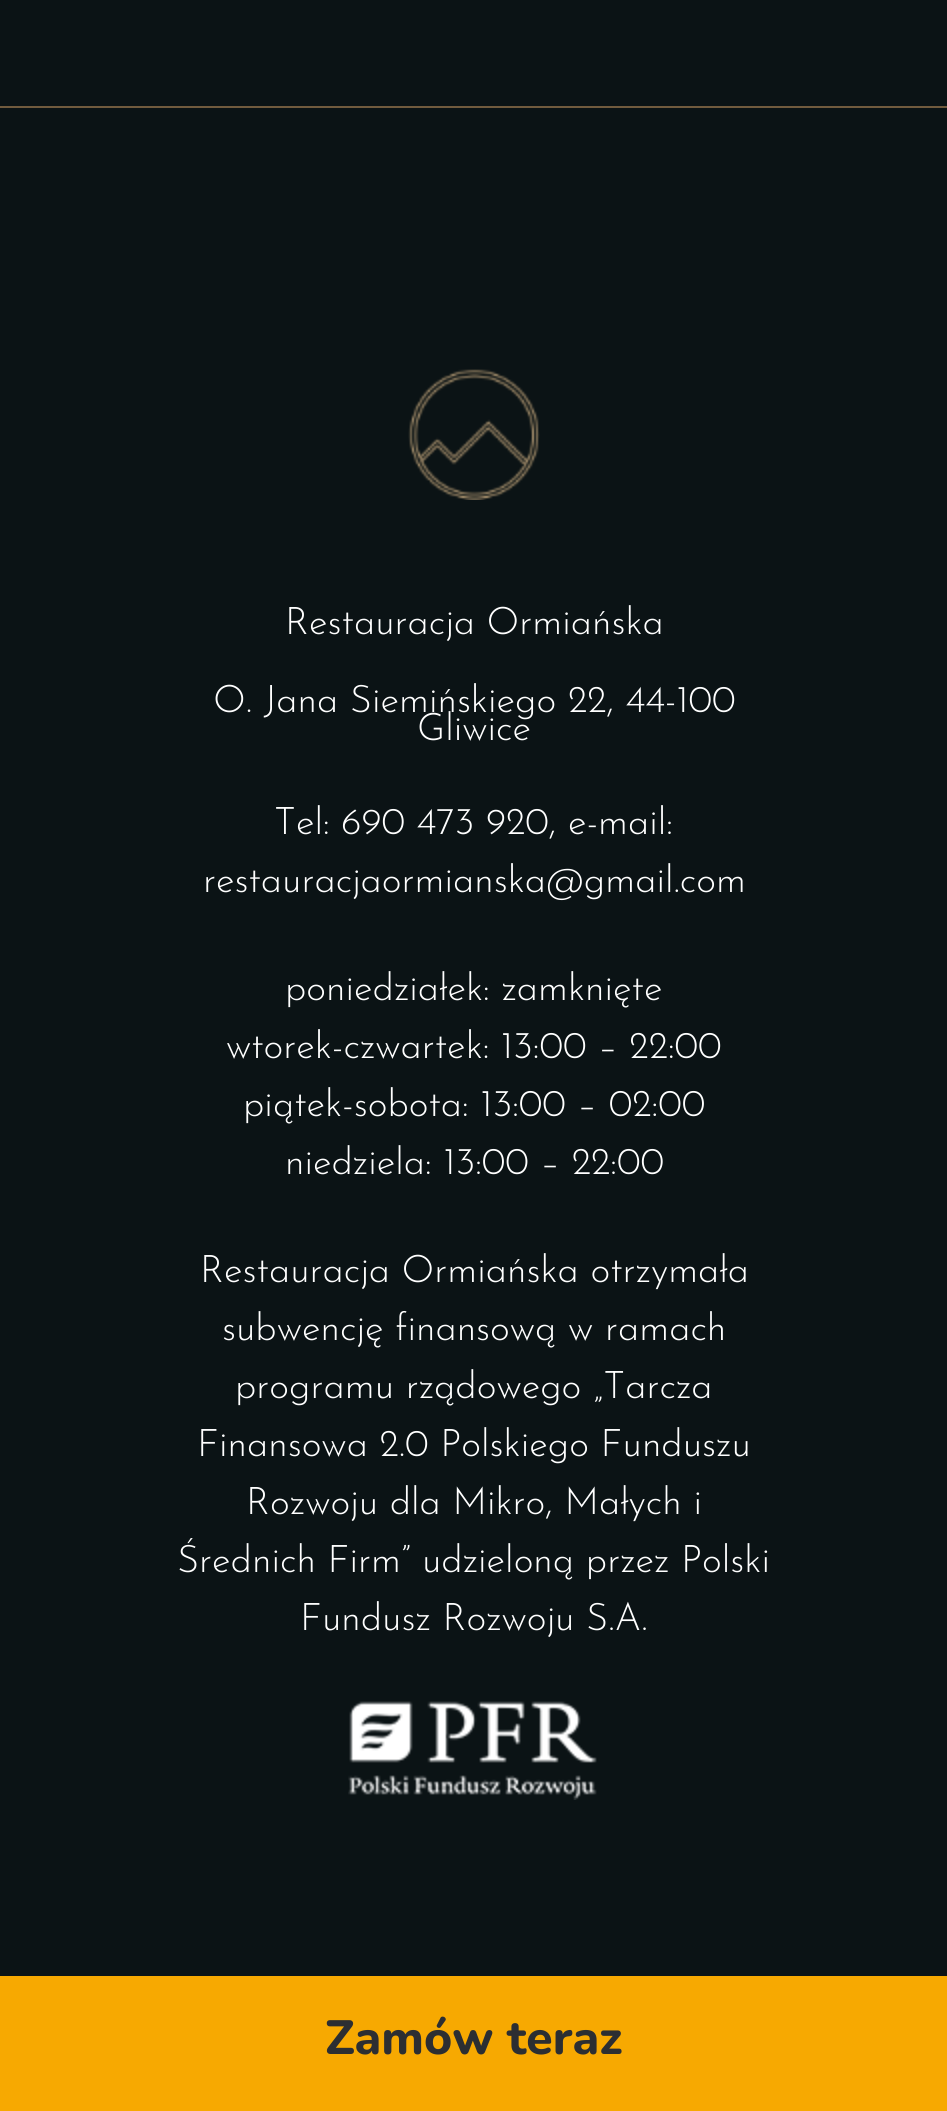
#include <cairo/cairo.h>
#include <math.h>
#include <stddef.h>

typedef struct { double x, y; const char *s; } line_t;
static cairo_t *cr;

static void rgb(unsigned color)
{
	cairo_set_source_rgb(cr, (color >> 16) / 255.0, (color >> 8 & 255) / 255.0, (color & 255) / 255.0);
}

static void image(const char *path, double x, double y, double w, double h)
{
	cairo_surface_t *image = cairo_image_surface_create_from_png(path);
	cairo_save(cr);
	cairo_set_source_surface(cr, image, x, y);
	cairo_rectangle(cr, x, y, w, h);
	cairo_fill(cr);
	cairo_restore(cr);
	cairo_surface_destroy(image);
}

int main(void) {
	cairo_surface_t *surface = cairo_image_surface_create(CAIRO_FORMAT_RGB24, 947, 2111);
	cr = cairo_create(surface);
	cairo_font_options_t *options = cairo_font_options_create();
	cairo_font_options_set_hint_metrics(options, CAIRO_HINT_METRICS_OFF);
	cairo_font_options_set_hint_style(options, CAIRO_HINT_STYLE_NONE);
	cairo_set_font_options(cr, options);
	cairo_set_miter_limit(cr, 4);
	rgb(0x0b1315);
	cairo_paint(cr);
	rgb(0x715b3e);
	cairo_rectangle(cr, 0, 106, 947, 2);
	cairo_fill(cr);
	image("img/1.png", 408, 369, 132, 131);
	image("img/2.png", 348, 1701, 249, 99);
	rgb(0xf7a901);
	cairo_rectangle(cr, 0, 1976, 947, 135);
	cairo_fill(cr);
	cairo_select_font_face(cr, "Josefin Sans Light", CAIRO_FONT_SLANT_NORMAL, CAIRO_FONT_WEIGHT_NORMAL);
	cairo_set_font_size(cr, 38);
	rgb(0xffffff);
	{
		static const line_t items[] = {
			{285, 634, "Restauracja Ormiańska"},
			{213, 712, "O. Jana Siemińskiego 22, 44-100"},
			{417, 740, "Gliwice"},
			{274, 834, "Tel: 690 473 920, e-mail:"},
			{203, 892, "restauracjaormianska@gmail.com"},
			{285, 1000, "poniedziałek: zamknięte"},
			{226, 1058, "wtorek-czwartek: 13:00 – 22:00"},
			{243, 1116, "piątek-sobota: 13:00 – 02:00"},
			{285, 1174, "niedziela: 13:00 – 22:00"},
			{200, 1282, "Restauracja Ormiańska otrzymała"},
			{222, 1340, "subwencję finansową w ramach"},
			{235, 1398, "programu rządowego „Tarcza"},
			{197, 1456, "Finansowa 2.0 Polskiego Funduszu"},
			{246, 1514, "Rozwoju dla Mikro, Małych i"},
			{177, 1572, "Średnich Firm” udzieloną przez Polski"},
			{300, 1630, "Fundusz Rozwoju S.A."},
		};
		for (size_t i = 0; i < sizeof items / sizeof *items; i++) {
			cairo_move_to(cr, items[i].x, items[i].y);
			cairo_show_text(cr, items[i].s);
		}
	}
	cairo_select_font_face(cr, "Nunito ExtraBold", CAIRO_FONT_SLANT_NORMAL, CAIRO_FONT_WEIGHT_NORMAL);
	cairo_set_font_size(cr, 48);
	rgb(0x2c2e32);
	cairo_move_to(cr, 325, 2054);
	cairo_show_text(cr, "Zamów teraz");
	cairo_surface_write_to_png(surface, "page.png");
	cairo_font_options_destroy(options);
	cairo_destroy(cr);
	cairo_surface_destroy(surface);
	return 0;
}
